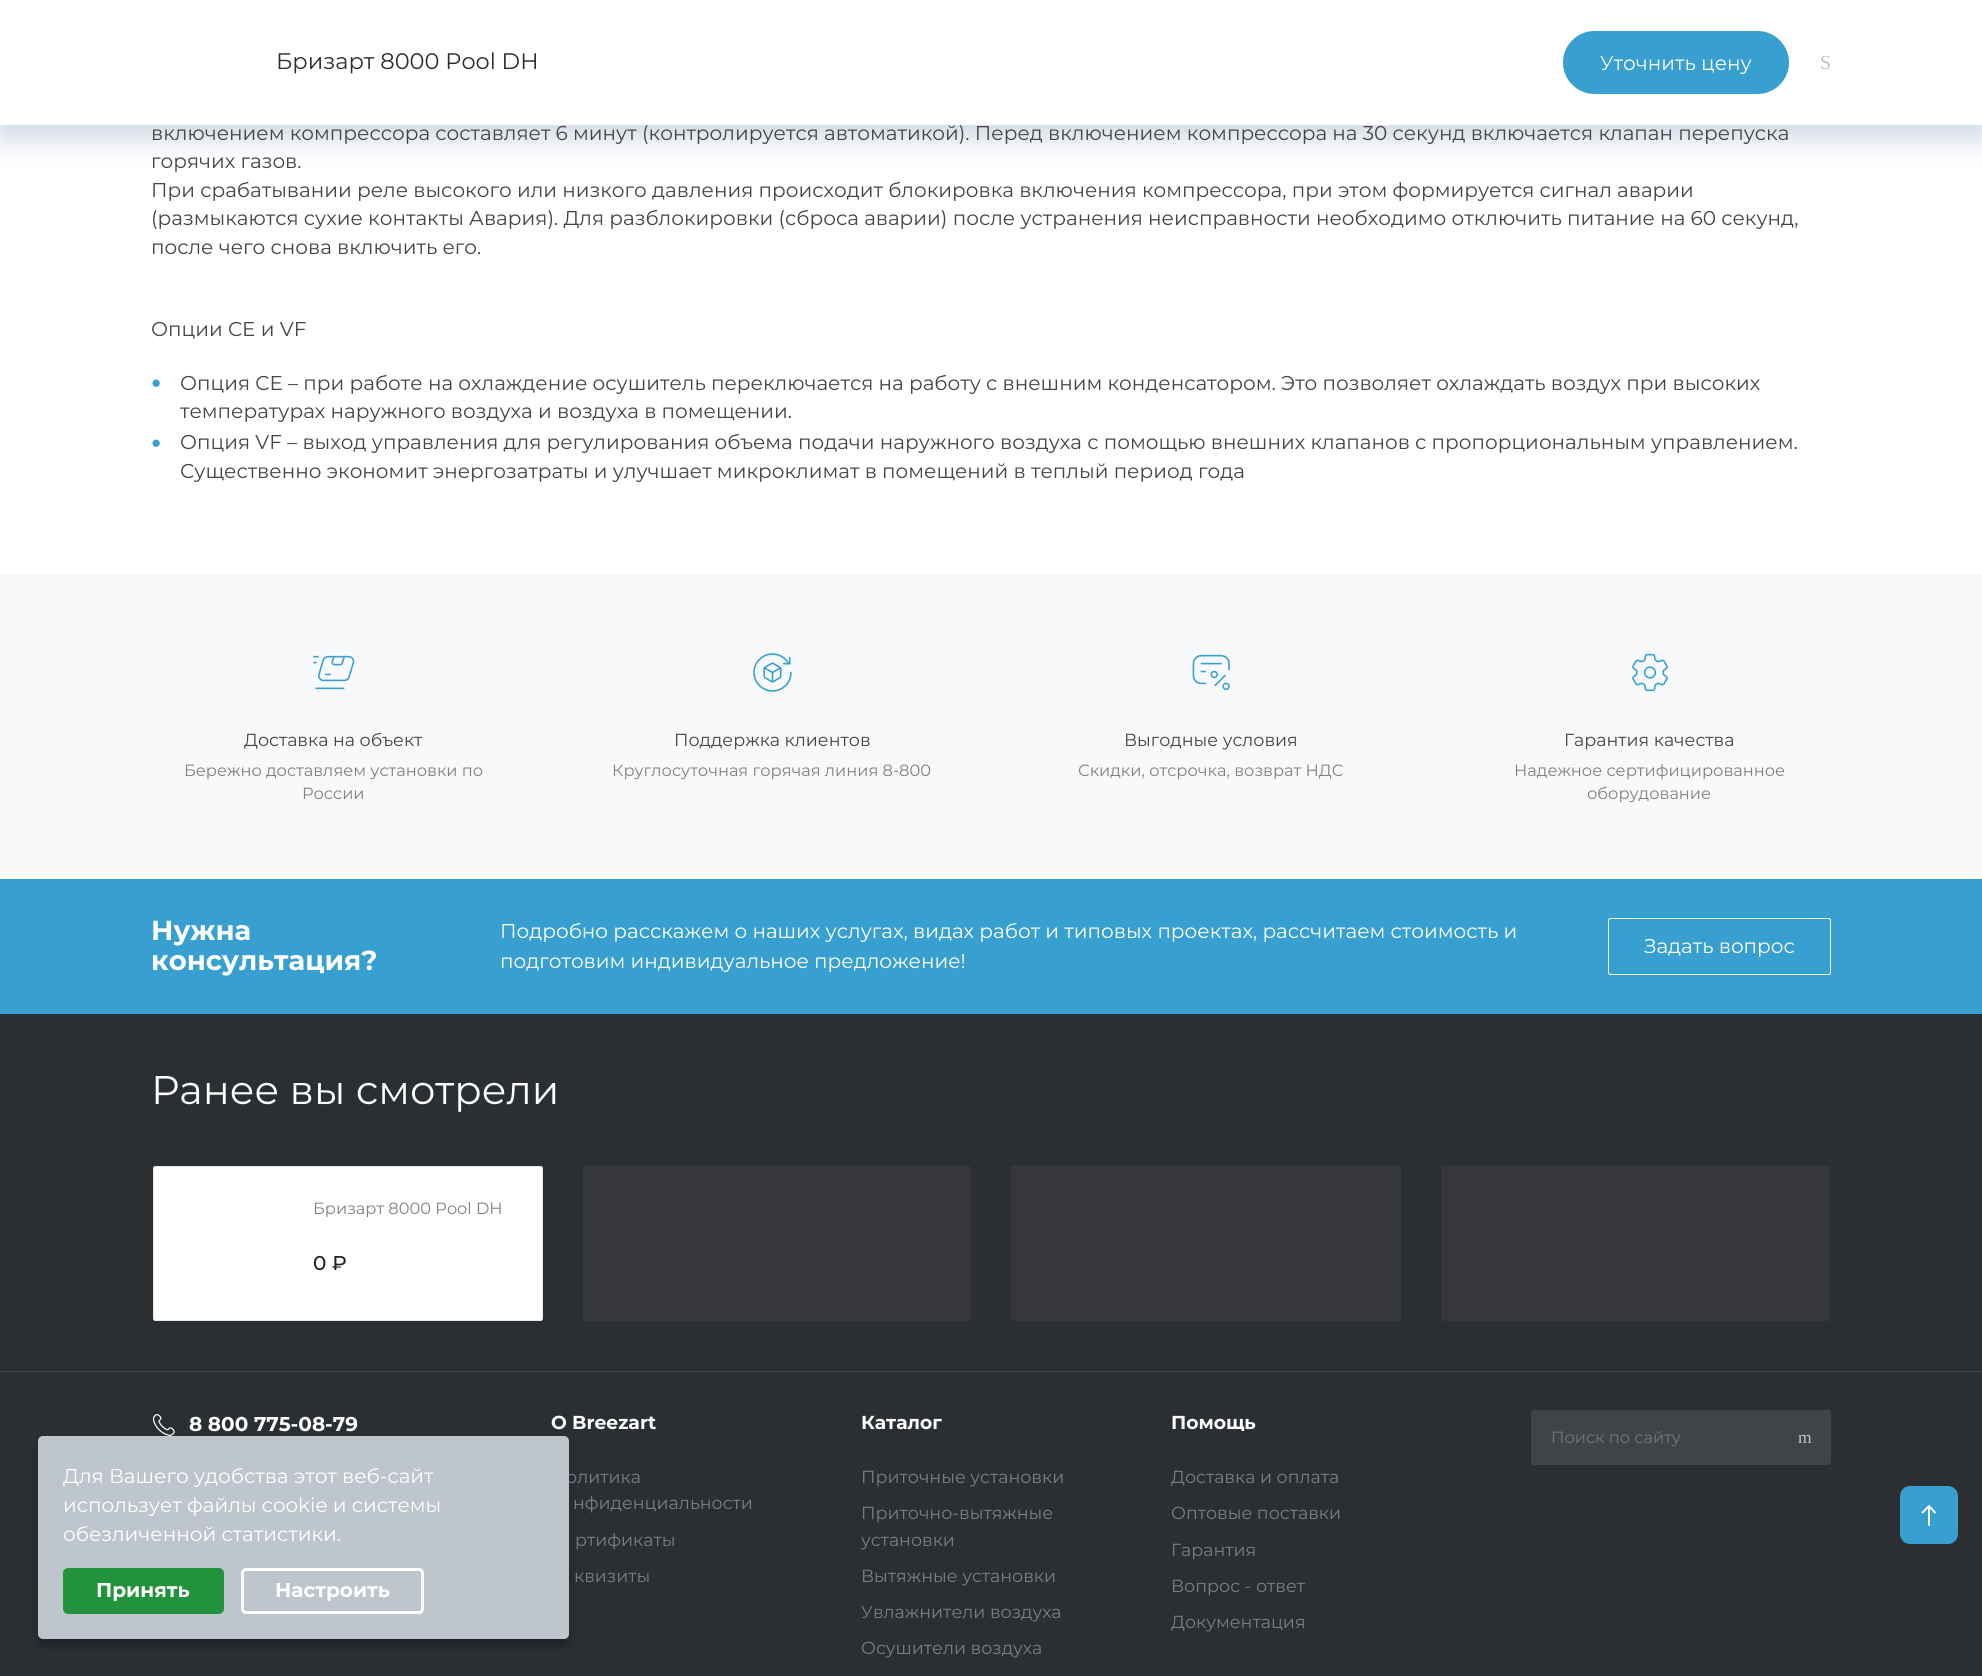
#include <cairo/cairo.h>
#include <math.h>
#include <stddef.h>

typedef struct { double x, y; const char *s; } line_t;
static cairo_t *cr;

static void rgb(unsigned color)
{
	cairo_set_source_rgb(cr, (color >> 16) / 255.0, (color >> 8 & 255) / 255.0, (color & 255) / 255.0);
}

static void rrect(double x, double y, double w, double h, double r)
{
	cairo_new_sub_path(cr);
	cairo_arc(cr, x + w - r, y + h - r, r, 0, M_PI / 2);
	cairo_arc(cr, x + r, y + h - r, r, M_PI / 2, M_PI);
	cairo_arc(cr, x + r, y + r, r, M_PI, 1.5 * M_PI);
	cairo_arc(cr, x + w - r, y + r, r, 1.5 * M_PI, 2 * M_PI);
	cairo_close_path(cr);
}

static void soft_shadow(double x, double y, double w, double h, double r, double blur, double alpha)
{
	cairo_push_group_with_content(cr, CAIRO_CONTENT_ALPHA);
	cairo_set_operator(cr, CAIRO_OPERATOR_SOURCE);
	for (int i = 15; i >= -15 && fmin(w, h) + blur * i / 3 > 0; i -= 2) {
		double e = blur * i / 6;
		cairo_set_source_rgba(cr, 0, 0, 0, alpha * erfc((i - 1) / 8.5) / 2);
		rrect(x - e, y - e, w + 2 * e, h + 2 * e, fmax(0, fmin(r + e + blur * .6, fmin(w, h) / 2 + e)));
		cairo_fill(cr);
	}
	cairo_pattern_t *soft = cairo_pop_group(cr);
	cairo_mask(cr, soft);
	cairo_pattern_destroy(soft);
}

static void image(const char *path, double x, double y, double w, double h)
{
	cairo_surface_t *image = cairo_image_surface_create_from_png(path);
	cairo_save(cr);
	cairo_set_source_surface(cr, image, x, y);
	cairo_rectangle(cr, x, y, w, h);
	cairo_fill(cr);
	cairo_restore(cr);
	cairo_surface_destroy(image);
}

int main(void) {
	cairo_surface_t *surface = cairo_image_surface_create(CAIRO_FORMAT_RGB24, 1982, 1676);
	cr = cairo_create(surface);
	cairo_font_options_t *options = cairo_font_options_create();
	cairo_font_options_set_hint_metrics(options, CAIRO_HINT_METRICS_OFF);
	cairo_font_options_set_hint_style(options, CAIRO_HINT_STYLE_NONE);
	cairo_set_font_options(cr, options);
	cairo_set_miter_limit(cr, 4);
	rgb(0xffffff);
	cairo_paint(cr);
	rgb(0x6782a5);
	soft_shadow(0, 11, 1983, 125, 0, 15, 0.35);
	rgb(0xffffff);
	cairo_rectangle(cr, 0, 0, 1982, 125);
	cairo_fill(cr);
	rgb(0x37a0d1);
	rrect(1564.5, 32.5, 223, 60, 30);
	cairo_fill_preserve(cr);
	cairo_set_line_width(cr, 3);
	cairo_stroke(cr);
	rgb(0xf8f9fb);
	cairo_rectangle(cr, 0, 574, 1982, 305);
	cairo_fill(cr);
	image("img/1.png", 313, 655, 42, 35);
	image("img/2.png", 753, 653, 39, 39);
	image("img/3.png", 1192, 654, 38, 37);
	image("img/4.png", 1632, 653, 36, 39);
	rgb(0x37a0d1);
	cairo_rectangle(cr, 0, 879, 1982, 135);
	cairo_fill(cr);
	rrect(1608.5, 918.5, 222, 56, 2);
	rgb(0xffffff);
	cairo_set_line_width(cr, 1);
	cairo_stroke(cr);
	rgb(0x2b2f32);
	cairo_rectangle(cr, 0, 1014, 1982, 662);
	cairo_fill(cr);
	rgb(0x484848);
	cairo_rectangle(cr, 0, 1371, 1982, 1);
	cairo_fill(cr);
	rgb(0xffffff);
	rrect(153.5, 1166.5, 389, 154, 2);
	cairo_fill_preserve(cr);
	rgb(0xe8e8e8);
	cairo_stroke(cr);
	rgb(0x35373c);
	rrect(583, 1166, 388, 155, 2.5);
	cairo_fill(cr);
	rrect(1011, 1166, 390, 155, 2.5);
	cairo_fill(cr);
	rrect(1441, 1166, 389, 155, 2.5);
	cairo_fill(cr);
	image("img/5.png", 153, 1414, 22, 22);
	rgb(0x414447);
	rrect(1531.5, 1410.5, 299, 54, 2);
	cairo_fill_preserve(cr);
	cairo_stroke(cr);
	rgb(0x37a0d1);
	rrect(1901.5, 1487.5, 55, 55, 8.5);
	cairo_fill_preserve(cr);
	cairo_set_line_width(cr, 3);
	cairo_stroke(cr);
	cairo_new_path(cr);
	cairo_move_to(cr, 1935, 1512.5);
	cairo_line_to(cr, 1929, 1506);
	cairo_line_to(cr, 1922.5, 1512.5);
	cairo_move_to(cr, 1929, 1525);
	cairo_line_to(cr, 1929, 1506);
	rgb(0xffffff);
	cairo_set_line_width(cr, 1.9);
	cairo_set_line_cap(cr, CAIRO_LINE_CAP_ROUND);
	cairo_set_line_join(cr, CAIRO_LINE_JOIN_ROUND);
	cairo_stroke(cr);
	rgb(0x000000);
	soft_shadow(38, 1444, 531, 202, 5, 4, 0.25);
	cairo_select_font_face(cr, "Montserrat", CAIRO_FONT_SLANT_NORMAL, CAIRO_FONT_WEIGHT_NORMAL);
	cairo_set_font_size(cr, 22.5);
	rgb(0x2d2d2d);
	cairo_move_to(cr, 276, 69);
	cairo_show_text(cr, "Бризарт 8000 Pool DH");
	cairo_set_font_size(cr, 20);
	rgb(0xffffff);
	cairo_move_to(cr, 1600, 70);
	cairo_show_text(cr, "Уточнить цену");
	cairo_select_font_face(cr, "Liberation Serif", CAIRO_FONT_SLANT_NORMAL, CAIRO_FONT_WEIGHT_NORMAL);
	rgb(0xc2c2c2);
	cairo_move_to(cr, 1820, 69);
	cairo_show_text(cr, "S");
	cairo_select_font_face(cr, "Montserrat", CAIRO_FONT_SLANT_NORMAL, CAIRO_FONT_WEIGHT_NORMAL);
	rgb(0x444444);
	{
		static const line_t items[] = {
			{151, 140, "включением компрессора составляет 6 минут (контролируется автоматикой). Перед включением компрессора на 30 секунд включается клапан перепуска"},
			{151, 168, "горячих газов."},
			{151, 197, "При срабатывании реле высокого или низкого давления происходит блокировка включения компрессора, при этом формируется сигнал аварии"},
			{151, 225, "(размыкаются сухие контакты Авария). Для разблокировки (сброса аварии) после устранения неисправности необходимо отключить питание на 60 секунд,"},
			{151, 254, "после чего снова включить его."},
			{151, 336, "Опции CE и VF"},
		};
		for (size_t i = 0; i < sizeof items / sizeof *items; i++) {
			cairo_move_to(cr, items[i].x, items[i].y);
			cairo_show_text(cr, items[i].s);
		}
	}
	cairo_select_font_face(cr, "Liberation Sans", CAIRO_FONT_SLANT_NORMAL, CAIRO_FONT_WEIGHT_NORMAL);
	cairo_set_font_size(cr, 17);
	rgb(0x37a0d1);
	cairo_move_to(cr, 151, 388);
	cairo_show_text(cr, "●");
	cairo_select_font_face(cr, "Montserrat", CAIRO_FONT_SLANT_NORMAL, CAIRO_FONT_WEIGHT_NORMAL);
	cairo_set_font_size(cr, 20);
	rgb(0x444444);
	cairo_move_to(cr, 180, 390);
	cairo_show_text(cr, "Опция CE – при работе на охлаждение осушитель переключается на работу с внешним конденсатором. Это позволяет охлаждать воздух при высоких");
	cairo_move_to(cr, 180, 418);
	cairo_show_text(cr, "температурах наружного воздуха и воздуха в помещении.");
	cairo_select_font_face(cr, "Liberation Sans", CAIRO_FONT_SLANT_NORMAL, CAIRO_FONT_WEIGHT_NORMAL);
	cairo_set_font_size(cr, 17);
	rgb(0x37a0d1);
	cairo_move_to(cr, 151, 448);
	cairo_show_text(cr, "●");
	cairo_select_font_face(cr, "Montserrat", CAIRO_FONT_SLANT_NORMAL, CAIRO_FONT_WEIGHT_NORMAL);
	cairo_set_font_size(cr, 20);
	rgb(0x444444);
	cairo_move_to(cr, 180, 449);
	cairo_show_text(cr, "Опция VF – выход управления для регулирования объема подачи наружного воздуха с помощью внешних клапанов с пропорциональным управлением.");
	cairo_move_to(cr, 180, 478);
	cairo_show_text(cr, "Существенно экономит энергозатраты и улучшает микроклимат в помещений в теплый период года");
	cairo_set_font_size(cr, 17.5);
	cairo_move_to(cr, 244, 746);
	cairo_show_text(cr, "Доставка на объект");
	cairo_set_font_size(cr, 16.25);
	rgb(0x808080);
	cairo_move_to(cr, 184, 776);
	cairo_show_text(cr, "Бережно доставляем установки по");
	cairo_move_to(cr, 302, 799);
	cairo_show_text(cr, "России");
	cairo_set_font_size(cr, 17.5);
	rgb(0x444444);
	cairo_move_to(cr, 674, 746);
	cairo_show_text(cr, "Поддержка клиентов");
	cairo_set_font_size(cr, 16.25);
	rgb(0x808080);
	cairo_move_to(cr, 612, 776);
	cairo_show_text(cr, "Круглосуточная горячая линия 8-800");
	cairo_set_font_size(cr, 17.5);
	rgb(0x444444);
	cairo_move_to(cr, 1124, 746);
	cairo_show_text(cr, "Выгодные условия");
	cairo_set_font_size(cr, 16.25);
	rgb(0x808080);
	cairo_move_to(cr, 1078, 776);
	cairo_show_text(cr, "Скидки, отсрочка, возврат НДС");
	cairo_set_font_size(cr, 17.5);
	rgb(0x444444);
	cairo_move_to(cr, 1564, 746);
	cairo_show_text(cr, "Гарантия качества");
	cairo_set_font_size(cr, 16.25);
	rgb(0x808080);
	cairo_move_to(cr, 1514, 776);
	cairo_show_text(cr, "Надежное сертифицированное");
	cairo_move_to(cr, 1587, 799);
	cairo_show_text(cr, "оборудование");
	cairo_select_font_face(cr, "Montserrat", CAIRO_FONT_SLANT_NORMAL, CAIRO_FONT_WEIGHT_BOLD);
	cairo_set_font_size(cr, 27.5);
	rgb(0xffffff);
	cairo_move_to(cr, 151, 940);
	cairo_show_text(cr, "Нужна");
	cairo_move_to(cr, 151, 970);
	cairo_show_text(cr, "консультация?");
	cairo_select_font_face(cr, "Montserrat", CAIRO_FONT_SLANT_NORMAL, CAIRO_FONT_WEIGHT_NORMAL);
	cairo_set_font_size(cr, 20);
	{
		static const line_t items[] = {
			{500, 938, "Подробно расскажем о наших услугах, видах работ и типовых проектах, рассчитаем стоимость и"},
			{500, 968, "подготовим индивидуальное предложение!"},
			{1644, 953, "Задать вопрос"},
		};
		for (size_t i = 0; i < sizeof items / sizeof *items; i++) {
			cairo_move_to(cr, items[i].x, items[i].y);
			cairo_show_text(cr, items[i].s);
		}
	}
	cairo_set_font_size(cr, 40);
	cairo_move_to(cr, 151, 1104);
	cairo_show_text(cr, "Ранее вы смотрели");
	cairo_set_font_size(cr, 16.25);
	rgb(0x808080);
	cairo_move_to(cr, 313, 1214);
	cairo_show_text(cr, "Бризарт 8000 Pool DH");
	cairo_select_font_face(cr, "Montserrat Medium", CAIRO_FONT_SLANT_NORMAL, CAIRO_FONT_WEIGHT_NORMAL);
	cairo_set_font_size(cr, 20);
	rgb(0x222222);
	cairo_move_to(cr, 313, 1270);
	cairo_show_text(cr, "0 ₽");
	cairo_select_font_face(cr, "Montserrat", CAIRO_FONT_SLANT_NORMAL, CAIRO_FONT_WEIGHT_BOLD);
	rgb(0xffffff);
	cairo_move_to(cr, 189, 1431);
	cairo_show_text(cr, "8 800 775-08-79");
	cairo_set_font_size(cr, 18.75);
	cairo_move_to(cr, 551, 1429);
	cairo_show_text(cr, "О Breezart");
	cairo_select_font_face(cr, "Montserrat", CAIRO_FONT_SLANT_NORMAL, CAIRO_FONT_WEIGHT_NORMAL);
	cairo_set_font_size(cr, 17.5);
	rgb(0x777e89);
	{
		static const line_t items[] = {
			{566, 1483, "олитика"},
			{573, 1509, "нфиденциальности"},
			{575, 1546, "ртификаты"},
			{574, 1582, "квизиты"},
		};
		for (size_t i = 0; i < sizeof items / sizeof *items; i++) {
			cairo_move_to(cr, items[i].x, items[i].y);
			cairo_show_text(cr, items[i].s);
		}
	}
	cairo_select_font_face(cr, "Montserrat", CAIRO_FONT_SLANT_NORMAL, CAIRO_FONT_WEIGHT_BOLD);
	cairo_set_font_size(cr, 18.75);
	rgb(0xffffff);
	cairo_move_to(cr, 861, 1429);
	cairo_show_text(cr, "Каталог");
	cairo_select_font_face(cr, "Montserrat", CAIRO_FONT_SLANT_NORMAL, CAIRO_FONT_WEIGHT_NORMAL);
	cairo_set_font_size(cr, 17.5);
	rgb(0x777e89);
	{
		static const line_t items[] = {
			{861, 1483, "Приточные установки"},
			{861, 1519, "Приточно-вытяжные"},
			{861, 1546, "установки"},
			{861, 1582, "Вытяжные установки"},
			{861, 1618, "Увлажнители воздуха"},
			{861, 1654, "Осушители воздуха"},
		};
		for (size_t i = 0; i < sizeof items / sizeof *items; i++) {
			cairo_move_to(cr, items[i].x, items[i].y);
			cairo_show_text(cr, items[i].s);
		}
	}
	cairo_select_font_face(cr, "Montserrat", CAIRO_FONT_SLANT_NORMAL, CAIRO_FONT_WEIGHT_BOLD);
	cairo_set_font_size(cr, 18.75);
	rgb(0xffffff);
	cairo_move_to(cr, 1171, 1429);
	cairo_show_text(cr, "Помощь");
	cairo_select_font_face(cr, "Montserrat", CAIRO_FONT_SLANT_NORMAL, CAIRO_FONT_WEIGHT_NORMAL);
	cairo_set_font_size(cr, 17.5);
	rgb(0x777e89);
	{
		static const line_t items[] = {
			{1171, 1483, "Доставка и оплата"},
			{1171, 1519, "Оптовые поставки"},
			{1171, 1556, "Гарантия"},
			{1171, 1592, "Вопрос - ответ"},
			{1171, 1628, "Документация"},
		};
		for (size_t i = 0; i < sizeof items / sizeof *items; i++) {
			cairo_move_to(cr, items[i].x, items[i].y);
			cairo_show_text(cr, items[i].s);
		}
	}
	cairo_set_font_size(cr, 16.25);
	rgb(0x757575);
	cairo_move_to(cr, 1551, 1443);
	cairo_show_text(cr, "Поиск по сайту");
	cairo_select_font_face(cr, "Liberation Serif", CAIRO_FONT_SLANT_NORMAL, CAIRO_FONT_WEIGHT_NORMAL);
	cairo_set_font_size(cr, 17.5);
	rgb(0xc2c2c2);
	cairo_move_to(cr, 1798, 1443);
	cairo_show_text(cr, "m");
	rgb(0xbfc5cd);
	rrect(38, 1436, 531, 203, 5);
	cairo_fill(cr);
	cairo_select_font_face(cr, "Montserrat", CAIRO_FONT_SLANT_NORMAL, CAIRO_FONT_WEIGHT_NORMAL);
	cairo_set_font_size(cr, 20);
	rgb(0xffffff);
	{
		static const line_t items[] = {
			{63, 1483, "Для Вашего удобства этот веб-сайт"},
			{63, 1512, "использует файлы cookie и системы"},
			{63, 1541, "обезличенной статистики."},
		};
		for (size_t i = 0; i < sizeof items / sizeof *items; i++) {
			cairo_move_to(cr, items[i].x, items[i].y);
			cairo_show_text(cr, items[i].s);
		}
	}
	rgb(0x23923d);
	rrect(64.5, 1569.5, 158, 43, 3.5);
	cairo_fill_preserve(cr);
	cairo_set_line_width(cr, 3);
	cairo_set_line_cap(cr, CAIRO_LINE_CAP_BUTT);
	cairo_set_line_join(cr, CAIRO_LINE_JOIN_MITER);
	cairo_stroke(cr);
	cairo_select_font_face(cr, "Montserrat", CAIRO_FONT_SLANT_NORMAL, CAIRO_FONT_WEIGHT_BOLD);
	rgb(0xffffff);
	cairo_move_to(cr, 96, 1597);
	cairo_show_text(cr, "Принять");
	rrect(242.5, 1569.5, 180, 43, 3.5);
	cairo_stroke(cr);
	cairo_move_to(cr, 275, 1597);
	cairo_show_text(cr, "Настроить");
	cairo_surface_write_to_png(surface, "page.png");
	cairo_font_options_destroy(options);
	cairo_destroy(cr);
	cairo_surface_destroy(surface);
	return 0;
}
